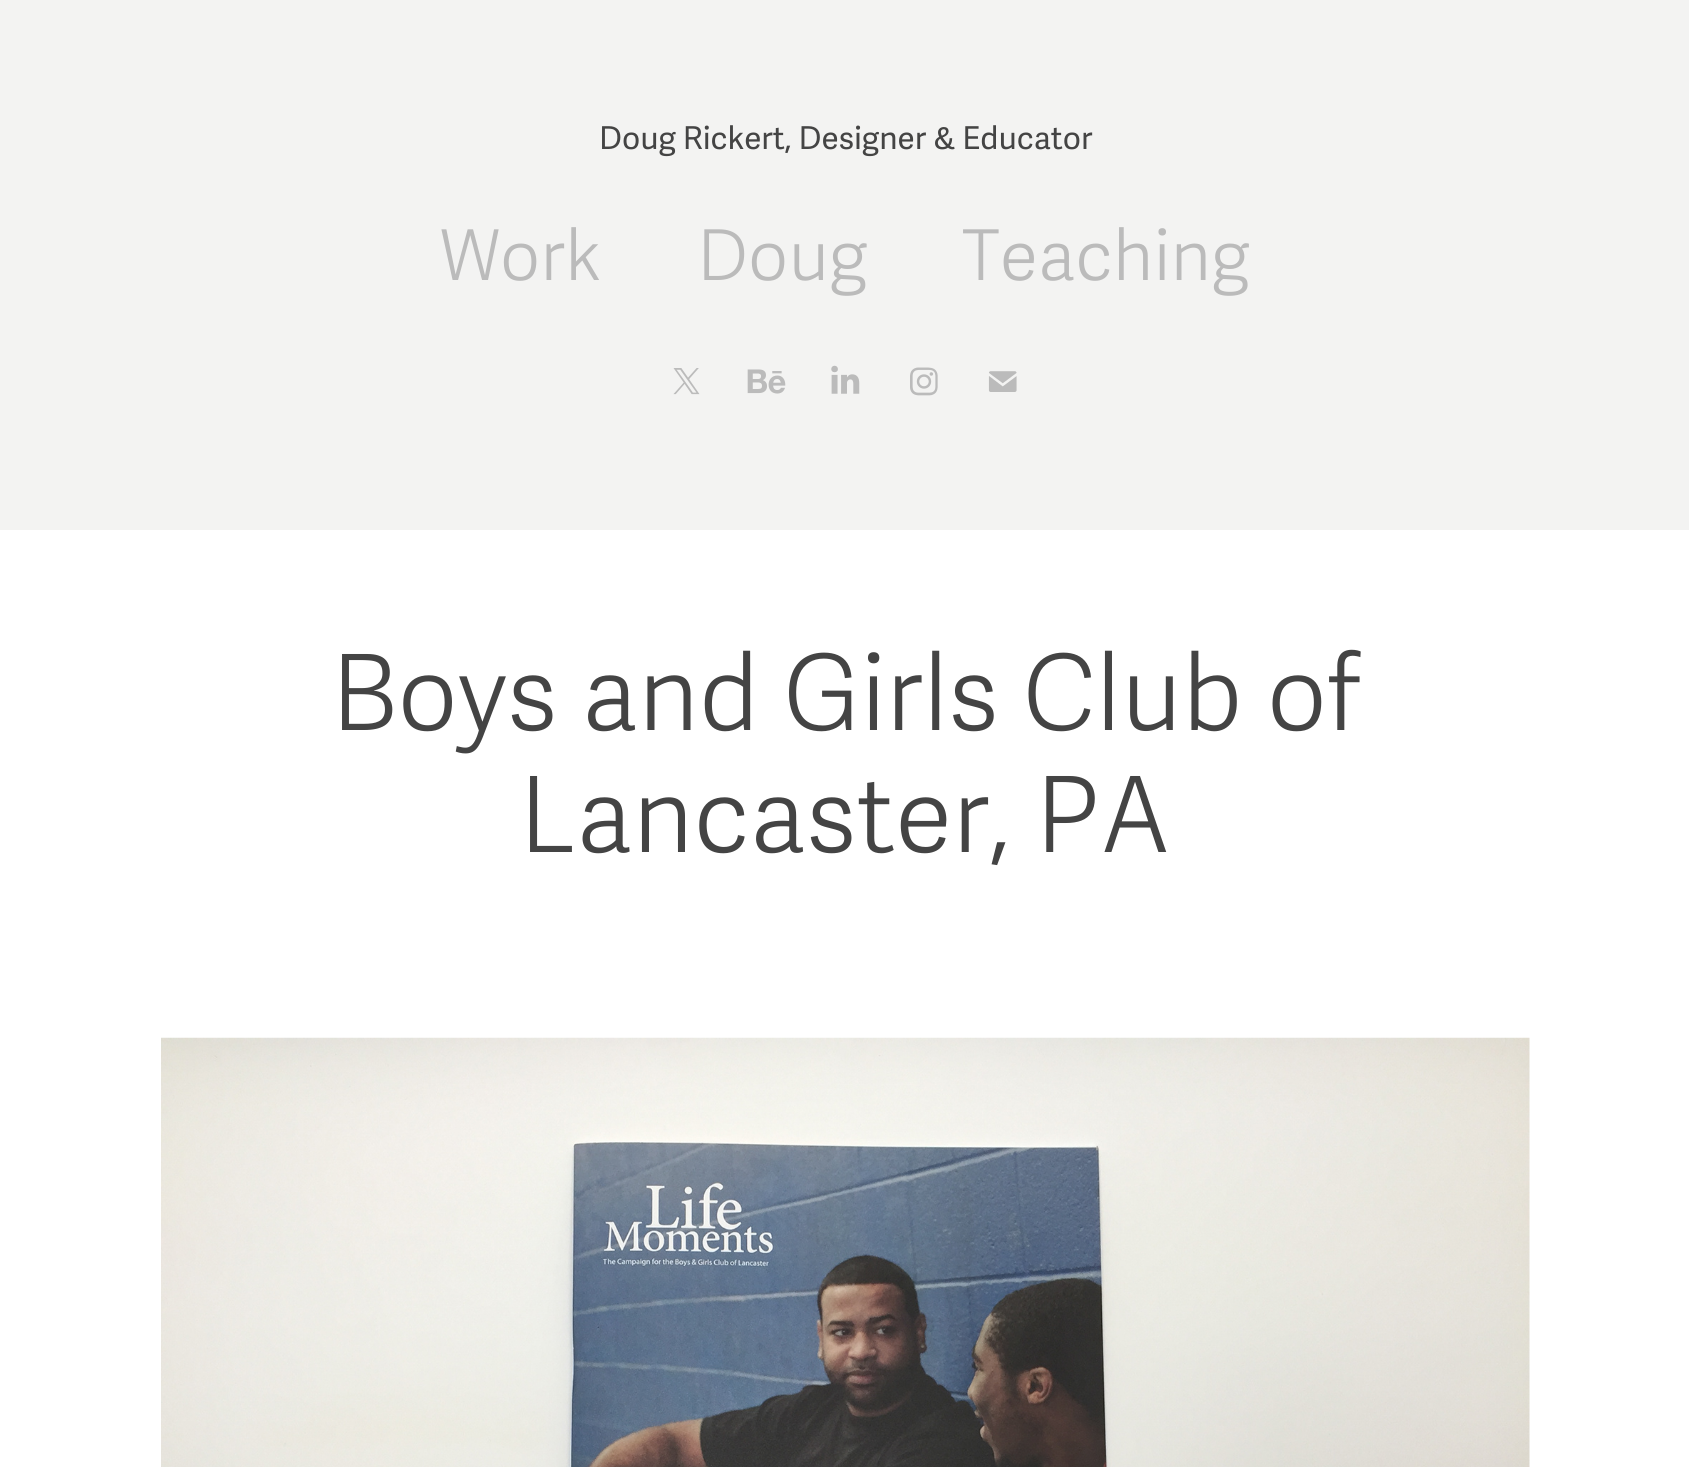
#include <cairo/cairo.h>
#include <math.h>
#include <stddef.h>

typedef struct { double x, y; const char *s; } line_t;
static cairo_t *cr;

static void rgb(unsigned color)
{
	cairo_set_source_rgb(cr, (color >> 16) / 255.0, (color >> 8 & 255) / 255.0, (color & 255) / 255.0);
}

static void image(const char *path, double x, double y, double w, double h)
{
	cairo_surface_t *image = cairo_image_surface_create_from_png(path);
	cairo_save(cr);
	cairo_set_source_surface(cr, image, x, y);
	cairo_rectangle(cr, x, y, w, h);
	cairo_fill(cr);
	cairo_restore(cr);
	cairo_surface_destroy(image);
}

int main(void) {
	cairo_surface_t *surface = cairo_image_surface_create(CAIRO_FORMAT_RGB24, 1689, 1467);
	cr = cairo_create(surface);
	cairo_font_options_t *options = cairo_font_options_create();
	cairo_font_options_set_hint_metrics(options, CAIRO_HINT_METRICS_OFF);
	cairo_font_options_set_hint_style(options, CAIRO_HINT_STYLE_NONE);
	cairo_set_font_options(cr, options);
	cairo_set_miter_limit(cr, 4);
	rgb(0xffffff);
	cairo_paint(cr);
	rgb(0xf3f3f2);
	cairo_rectangle(cr, 0, 0, 1689, 530);
	cairo_fill(cr);
	image("img/1.png", 673, 368, 27, 27);
	image("img/2.png", 747, 369, 39, 25);
	image("img/3.png", 831, 365, 29, 29);
	image("img/4.png", 910, 367, 28, 29);
	image("img/5.png", 988, 371, 29, 21);
	image("img/6.png", 161, 1037, 1369, 430);
	cairo_select_font_face(cr, "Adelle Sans", CAIRO_FONT_SLANT_NORMAL, CAIRO_FONT_WEIGHT_NORMAL);
	cairo_set_font_size(cr, 31.5);
	rgb(0x444444);
	cairo_move_to(cr, 599, 149);
	cairo_show_text(cr, "Doug Rickert, Designer & Educator");
	cairo_select_font_face(cr, "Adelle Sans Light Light", CAIRO_FONT_SLANT_NORMAL, CAIRO_FONT_WEIGHT_NORMAL);
	cairo_set_font_size(cr, 70);
	rgb(0xbbbbbb);
	{
		static const line_t items[] = {
			{440, 280, "Work"},
			{697, 280, "Doug"},
			{962, 280, "Teaching"},
		};
		for (size_t i = 0; i < sizeof items / sizeof *items; i++) {
			cairo_move_to(cr, items[i].x, items[i].y);
			cairo_show_text(cr, items[i].s);
		}
	}
	cairo_set_font_size(cr, 105);
	rgb(0x444444);
	cairo_move_to(cr, 331, 730);
	cairo_show_text(cr, "Boys and Girls Club of");
	cairo_move_to(cr, 519, 852);
	cairo_show_text(cr, "Lancaster, PA");
	cairo_surface_write_to_png(surface, "page.png");
	cairo_font_options_destroy(options);
	cairo_destroy(cr);
	cairo_surface_destroy(surface);
	return 0;
}
